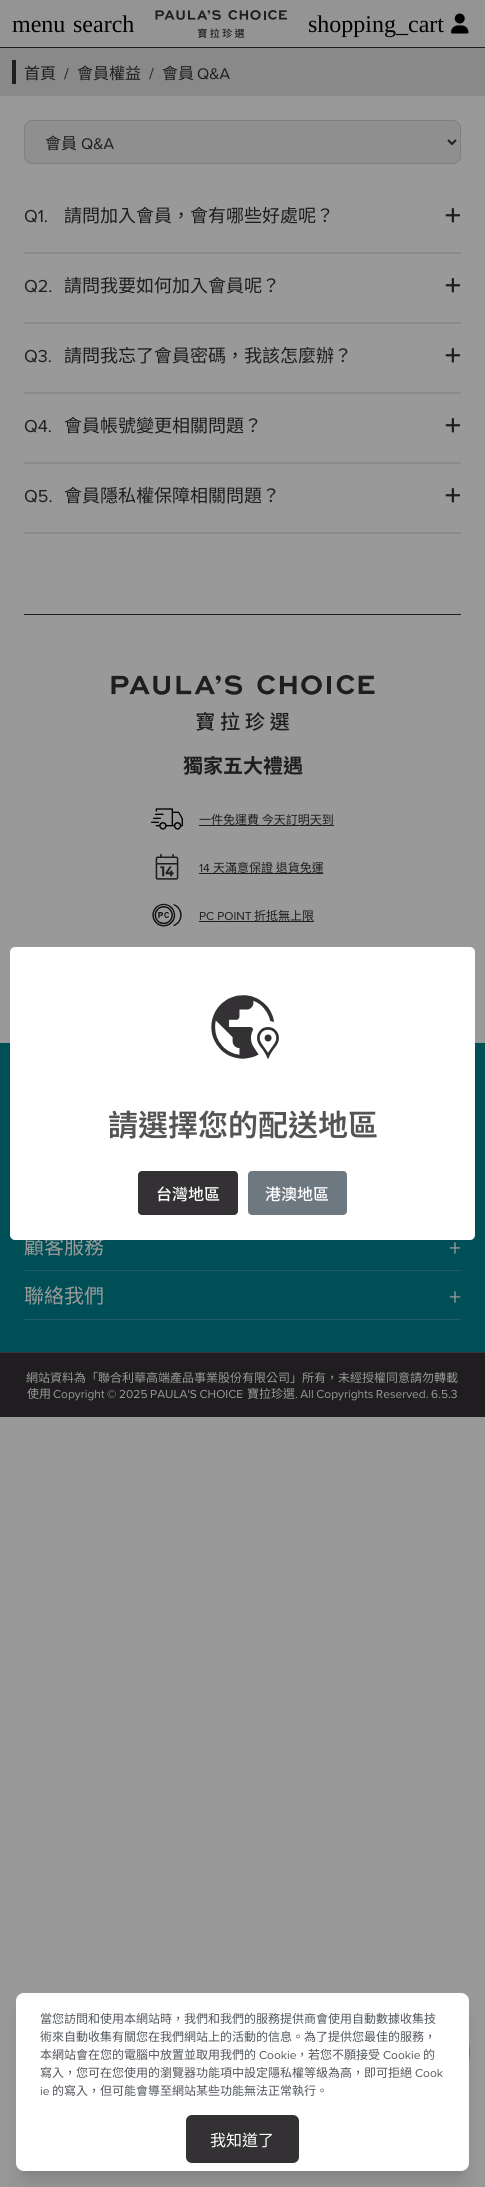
#include <cairo/cairo.h>
#include <math.h>
#include <stddef.h>

typedef struct { double x, y; const char *s; } line_t;
typedef struct { double x, y, w, h; unsigned color; } box_t;
static cairo_t *cr;

static void rgb(unsigned color)
{
	cairo_set_source_rgb(cr, (color >> 16) / 255.0, (color >> 8 & 255) / 255.0, (color & 255) / 255.0);
}

static void tracked(double x, double y, const char *s, double letter, double word)
{
	cairo_move_to(cr, x, y);
	while (*s) {
		char ch[5] = {0};
		int n = 0;
		do ch[n++] = *s++; while ((*s & 0xC0) == 0x80);
		cairo_show_text(cr, ch);
		cairo_rel_move_to(cr, letter + word * (*ch == ' '), 0);
	}
}

static void rrect(double x, double y, double w, double h, double r)
{
	cairo_new_sub_path(cr);
	cairo_arc(cr, x + w - r, y + h - r, r, 0, M_PI / 2);
	cairo_arc(cr, x + r, y + h - r, r, M_PI / 2, M_PI);
	cairo_arc(cr, x + r, y + r, r, M_PI, 1.5 * M_PI);
	cairo_arc(cr, x + w - r, y + r, r, 1.5 * M_PI, 2 * M_PI);
	cairo_close_path(cr);
}

static void soft_shadow(double x, double y, double w, double h, double r, double blur, double alpha)
{
	cairo_push_group_with_content(cr, CAIRO_CONTENT_ALPHA);
	cairo_set_operator(cr, CAIRO_OPERATOR_SOURCE);
	for (int i = 15; i >= -15 && fmin(w, h) + blur * i / 3 > 0; i -= 2) {
		double e = blur * i / 6;
		cairo_set_source_rgba(cr, 0, 0, 0, alpha * erfc((i - 1) / 8.5) / 2);
		rrect(x - e, y - e, w + 2 * e, h + 2 * e, fmax(0, fmin(r + e + blur * .6, fmin(w, h) / 2 + e)));
		cairo_fill(cr);
	}
	cairo_pattern_t *soft = cairo_pop_group(cr);
	cairo_mask(cr, soft);
	cairo_pattern_destroy(soft);
}

static void image(const char *path, double x, double y, double w, double h)
{
	cairo_surface_t *image = cairo_image_surface_create_from_png(path);
	cairo_save(cr);
	cairo_set_source_surface(cr, image, x, y);
	cairo_rectangle(cr, x, y, w, h);
	cairo_fill(cr);
	cairo_restore(cr);
	cairo_surface_destroy(image);
}

int main(void) {
	cairo_surface_t *surface = cairo_image_surface_create(CAIRO_FORMAT_RGB24, 485, 2187);
	cr = cairo_create(surface);
	cairo_font_options_t *options = cairo_font_options_create();
	cairo_font_options_set_hint_metrics(options, CAIRO_HINT_METRICS_OFF);
	cairo_font_options_set_hint_style(options, CAIRO_HINT_STYLE_NONE);
	cairo_set_font_options(cr, options);
	cairo_set_miter_limit(cr, 4);
	rgb(0x999999);
	cairo_paint(cr);
	rgb(0x949494);
	cairo_rectangle(cr, 0, 0, 485, 47);
	cairo_fill(cr);
	rgb(0x1f1d1f);
	cairo_rectangle(cr, 0, 47, 485, 1);
	cairo_fill(cr);
	image("img/1.png", 155, 10, 132, 28);
	image("img/2.png", 451, 13, 18, 21);
	rgb(0x898989);
	cairo_rectangle(cr, 0, 48, 485, 48);
	cairo_fill(cr);
	rgb(0x1f1d1f);
	cairo_rectangle(cr, 12, 60, 4, 24);
	cairo_fill(cr);
	rgb(0x8f8f8f);
	rrect(24.5, 120.5, 436, 43, 7.5);
	cairo_fill_preserve(cr);
	rgb(0x7d8083);
	cairo_set_line_width(cr, 1);
	cairo_stroke(cr);
	cairo_new_path(cr);
	cairo_move_to(cr, 448, 140);
	cairo_line_to(cr, 452, 144);
	cairo_line_to(cr, 456, 140);
	rgb(0x1f1d1f);
	cairo_set_line_width(cr, 2);
	cairo_stroke(cr);
	rgb(0x898b8d);
	cairo_rectangle(cr, 24, 252, 437, 2);
	cairo_fill(cr);
	image("img/3.png", 445, 208, 16, 15);
	cairo_rectangle(cr, 24, 322, 437, 2);
	cairo_fill(cr);
	image("img/3.png", 445, 278, 16, 15);
	cairo_rectangle(cr, 24, 392, 437, 2);
	cairo_fill(cr);
	image("img/3.png", 445, 348, 16, 15);
	cairo_rectangle(cr, 24, 462, 437, 2);
	cairo_fill(cr);
	image("img/3.png", 445, 418, 16, 15);
	cairo_rectangle(cr, 24, 532, 437, 2);
	cairo_fill(cr);
	image("img/3.png", 445, 488, 16, 15);
	rgb(0x1f1d1f);
	cairo_rectangle(cr, 24, 614, 437, 1);
	cairo_fill(cr);
	image("img/4.png", 111, 675, 264, 56);
	image("img/5.png", 151, 808, 32, 22);
	cairo_rectangle(cr, 199, 825, 135, 1);
	cairo_fill(cr);
	image("img/6.png", 155, 854, 24, 26);
	cairo_rectangle(cr, 199, 873, 124, 1);
	cairo_fill(cr);
	image("img/7.png", 152, 903, 30, 24);
	{
		static const box_t items[] = {
			{199, 921, 115, 1, 0x1f1d1f},
			{0, 1043, 485, 309, 0x004f57},
			{24, 1270, 437, 1, 0x1f5e64},
			{24, 1319, 437, 1, 0x1f5e64},
			{0, 1353, 485, 64, 0x1f1d1f},
			{0, 1352, 485, 1, 0x373637},
		};
		for (size_t i = 0; i < sizeof items / sizeof *items; i++) {
			rgb(items[i].color);
			cairo_rectangle(cr, items[i].x, items[i].y, items[i].w, items[i].h);
			cairo_fill(cr);
		}
	}
	image("img/9.png", 469, 2045, 1, 15);
	rgb(0x000000);
	soft_shadow(22, 2007, 441, 166, 2, 5, 0.1);
	soft_shadow(21, 2018, 443, 168, 3, 12.5, 0.1);
	rgb(0xffffff);
	rrect(16, 1993, 453, 178, 8);
	cairo_fill(cr);
	rgb(0x333133);
	rrect(186, 2115, 113, 48, 6);
	cairo_fill(cr);
	cairo_select_font_face(cr, "Liberation Serif", CAIRO_FONT_SLANT_NORMAL, CAIRO_FONT_WEIGHT_NORMAL);
	cairo_set_font_size(cr, 24);
	rgb(0x000000);
	{
		static const line_t items[] = {
			{12, 32, "menu"},
			{73, 32, "search"},
			{308, 32, "shopping_cart"},
		};
		for (size_t i = 0; i < sizeof items / sizeof *items; i++) {
			cairo_move_to(cr, items[i].x, items[i].y);
			cairo_show_text(cr, items[i].s);
		}
	}
	cairo_select_font_face(cr, "Noto Sans TC", CAIRO_FONT_SLANT_NORMAL, CAIRO_FONT_WEIGHT_NORMAL);
	cairo_set_font_size(cr, 16);
	rgb(0x1f1d1f);
	cairo_move_to(cr, 24, 79);
	cairo_show_text(cr, "首頁");
	cairo_select_font_face(cr, "Proxima Nova", CAIRO_FONT_SLANT_NORMAL, CAIRO_FONT_WEIGHT_NORMAL);
	cairo_move_to(cr, 64, 79);
	cairo_show_text(cr, "/");
	cairo_select_font_face(cr, "Noto Sans TC", CAIRO_FONT_SLANT_NORMAL, CAIRO_FONT_WEIGHT_NORMAL);
	cairo_move_to(cr, 77, 79);
	cairo_show_text(cr, "會員權益");
	cairo_select_font_face(cr, "Proxima Nova", CAIRO_FONT_SLANT_NORMAL, CAIRO_FONT_WEIGHT_NORMAL);
	cairo_move_to(cr, 149, 79);
	cairo_show_text(cr, "/");
	cairo_select_font_face(cr, "Noto Sans TC", CAIRO_FONT_SLANT_NORMAL, CAIRO_FONT_WEIGHT_NORMAL);
	cairo_move_to(cr, 162, 79);
	cairo_show_text(cr, "會員");
	cairo_select_font_face(cr, "Proxima Nova", CAIRO_FONT_SLANT_NORMAL, CAIRO_FONT_WEIGHT_NORMAL);
	cairo_move_to(cr, 197, 79);
	cairo_show_text(cr, "Q&A");
	cairo_select_font_face(cr, "Noto Sans TC", CAIRO_FONT_SLANT_NORMAL, CAIRO_FONT_WEIGHT_NORMAL);
	cairo_move_to(cr, 45, 149);
	cairo_show_text(cr, "會員");
	cairo_select_font_face(cr, "Proxima Nova", CAIRO_FONT_SLANT_NORMAL, CAIRO_FONT_WEIGHT_NORMAL);
	cairo_move_to(cr, 81, 149);
	cairo_show_text(cr, "Q&A");
	cairo_set_font_size(cr, 18);
	cairo_move_to(cr, 24, 222);
	cairo_show_text(cr, "Q1.");
	cairo_select_font_face(cr, "Noto Sans TC", CAIRO_FONT_SLANT_NORMAL, CAIRO_FONT_WEIGHT_NORMAL);
	cairo_move_to(cr, 64, 222);
	cairo_show_text(cr, "請問加入會員，會有哪些好處呢？");
	cairo_select_font_face(cr, "Proxima Nova", CAIRO_FONT_SLANT_NORMAL, CAIRO_FONT_WEIGHT_NORMAL);
	cairo_move_to(cr, 24, 292);
	cairo_show_text(cr, "Q2.");
	cairo_select_font_face(cr, "Noto Sans TC", CAIRO_FONT_SLANT_NORMAL, CAIRO_FONT_WEIGHT_NORMAL);
	cairo_move_to(cr, 64, 292);
	cairo_show_text(cr, "請問我要如何加入會員呢？");
	cairo_select_font_face(cr, "Proxima Nova", CAIRO_FONT_SLANT_NORMAL, CAIRO_FONT_WEIGHT_NORMAL);
	cairo_move_to(cr, 24, 362);
	cairo_show_text(cr, "Q3.");
	cairo_select_font_face(cr, "Noto Sans TC", CAIRO_FONT_SLANT_NORMAL, CAIRO_FONT_WEIGHT_NORMAL);
	cairo_move_to(cr, 64, 362);
	cairo_show_text(cr, "請問我忘了會員密碼，我該怎麼辦？");
	cairo_select_font_face(cr, "Proxima Nova", CAIRO_FONT_SLANT_NORMAL, CAIRO_FONT_WEIGHT_NORMAL);
	cairo_move_to(cr, 24, 432);
	cairo_show_text(cr, "Q4.");
	cairo_select_font_face(cr, "Noto Sans TC", CAIRO_FONT_SLANT_NORMAL, CAIRO_FONT_WEIGHT_NORMAL);
	cairo_move_to(cr, 64, 432);
	cairo_show_text(cr, "會員帳號變更相關問題？");
	cairo_select_font_face(cr, "Proxima Nova", CAIRO_FONT_SLANT_NORMAL, CAIRO_FONT_WEIGHT_NORMAL);
	cairo_move_to(cr, 24, 502);
	cairo_show_text(cr, "Q5.");
	cairo_select_font_face(cr, "Noto Sans TC", CAIRO_FONT_SLANT_NORMAL, CAIRO_FONT_WEIGHT_NORMAL);
	cairo_move_to(cr, 64, 502);
	cairo_show_text(cr, "會員隱私權保障相關問題？");
	cairo_select_font_face(cr, "Noto Sans TC", CAIRO_FONT_SLANT_NORMAL, CAIRO_FONT_WEIGHT_BOLD);
	cairo_set_font_size(cr, 20);
	cairo_move_to(cr, 183, 773);
	cairo_show_text(cr, "獨家五大禮遇");
	cairo_select_font_face(cr, "Noto Sans TC", CAIRO_FONT_SLANT_NORMAL, CAIRO_FONT_WEIGHT_NORMAL);
	cairo_set_font_size(cr, 12);
	cairo_move_to(cr, 199, 824);
	cairo_show_text(cr, "一件免運費 今天訂明天到");
	cairo_select_font_face(cr, "Proxima Nova", CAIRO_FONT_SLANT_NORMAL, CAIRO_FONT_WEIGHT_NORMAL);
	cairo_move_to(cr, 199, 872);
	cairo_show_text(cr, "14");
	cairo_select_font_face(cr, "Noto Sans TC", CAIRO_FONT_SLANT_NORMAL, CAIRO_FONT_WEIGHT_NORMAL);
	cairo_move_to(cr, 213, 872);
	cairo_show_text(cr, "天滿意保證 退貨免運");
	cairo_select_font_face(cr, "Proxima Nova", CAIRO_FONT_SLANT_NORMAL, CAIRO_FONT_WEIGHT_NORMAL);
	cairo_move_to(cr, 199, 920);
	cairo_show_text(cr, "PC POINT");
	cairo_select_font_face(cr, "Noto Sans TC", CAIRO_FONT_SLANT_NORMAL, CAIRO_FONT_WEIGHT_NORMAL);
	cairo_move_to(cr, 254, 920);
	cairo_show_text(cr, "折抵無上限");
	cairo_set_font_size(cr, 20);
	rgb(0x999999);
	cairo_move_to(cr, 24, 1254);
	cairo_show_text(cr, "顧客服務");
	cairo_select_font_face(cr, "Proxima Nova", CAIRO_FONT_SLANT_NORMAL, CAIRO_FONT_WEIGHT_NORMAL);
	cairo_set_font_size(cr, 24);
	cairo_move_to(cr, 449, 1256);
	cairo_show_text(cr, "+");
	cairo_select_font_face(cr, "Noto Sans TC", CAIRO_FONT_SLANT_NORMAL, CAIRO_FONT_WEIGHT_NORMAL);
	cairo_set_font_size(cr, 20);
	cairo_move_to(cr, 24, 1303);
	cairo_show_text(cr, "聯絡我們");
	cairo_select_font_face(cr, "Proxima Nova", CAIRO_FONT_SLANT_NORMAL, CAIRO_FONT_WEIGHT_NORMAL);
	cairo_set_font_size(cr, 24);
	cairo_move_to(cr, 449, 1305);
	cairo_show_text(cr, "+");
	cairo_select_font_face(cr, "Noto Sans TC", CAIRO_FONT_SLANT_NORMAL, CAIRO_FONT_WEIGHT_NORMAL);
	cairo_set_font_size(cr, 12);
	cairo_move_to(cr, 26, 1382);
	cairo_show_text(cr, "網站資料為「聯合利華高端產品事業股份有限公司」所有，未經授權同意請勿轉載");
	cairo_move_to(cr, 27, 1398);
	cairo_show_text(cr, "使用");
	cairo_select_font_face(cr, "Proxima Nova", CAIRO_FONT_SLANT_NORMAL, CAIRO_FONT_WEIGHT_NORMAL);
	tracked(53, 1398, "Copyright © 2025 PAULA'S CHOICE", 0, -0.5);
	cairo_select_font_face(cr, "Noto Sans TC", CAIRO_FONT_SLANT_NORMAL, CAIRO_FONT_WEIGHT_NORMAL);
	cairo_move_to(cr, 247, 1398);
	cairo_show_text(cr, "寶拉珍選");
	cairo_select_font_face(cr, "Proxima Nova", CAIRO_FONT_SLANT_NORMAL, CAIRO_FONT_WEIGHT_NORMAL);
	tracked(295, 1398, ". All Copyrights Reserved. 6.5.3", 0, -0.5);
	cairo_select_font_face(cr, "Noto Sans TC", CAIRO_FONT_SLANT_NORMAL, CAIRO_FONT_WEIGHT_NORMAL);
	rgb(0x52565b);
	{
		static const line_t items[] = {
			{40, 2023, "當您訪問和使用本網站時，我們和我們的服務提供商會使用自動數據收集技"},
			{40, 2041, "術來自動收集有關您在我們網站上的活動的信息。為了提供您最佳的服務，"},
			{40, 2059, "本網站會在您的電腦中放置並取用我們的"},
		};
		for (size_t i = 0; i < sizeof items / sizeof *items; i++) {
			cairo_move_to(cr, items[i].x, items[i].y);
			cairo_show_text(cr, items[i].s);
		}
	}
	cairo_select_font_face(cr, "Proxima Nova", CAIRO_FONT_SLANT_NORMAL, CAIRO_FONT_WEIGHT_NORMAL);
	cairo_move_to(cr, 259, 2059);
	cairo_show_text(cr, "Cookie");
	cairo_select_font_face(cr, "Noto Sans TC", CAIRO_FONT_SLANT_NORMAL, CAIRO_FONT_WEIGHT_NORMAL);
	cairo_move_to(cr, 296, 2059);
	cairo_show_text(cr, "，若您不願接受");
	cairo_select_font_face(cr, "Proxima Nova", CAIRO_FONT_SLANT_NORMAL, CAIRO_FONT_WEIGHT_NORMAL);
	cairo_move_to(cr, 383, 2059);
	cairo_show_text(cr, "Cookie");
	cairo_select_font_face(cr, "Noto Sans TC", CAIRO_FONT_SLANT_NORMAL, CAIRO_FONT_WEIGHT_NORMAL);
	cairo_move_to(cr, 423, 2059);
	cairo_show_text(cr, "的");
	cairo_move_to(cr, 40, 2077);
	cairo_show_text(cr, "寫入，您可在您使用的瀏覽器功能項中設定隱私權等級為高，即可拒絕");
	cairo_select_font_face(cr, "Proxima Nova", CAIRO_FONT_SLANT_NORMAL, CAIRO_FONT_WEIGHT_NORMAL);
	cairo_move_to(cr, 415, 2077);
	cairo_show_text(cr, "Cook");
	cairo_move_to(cr, 40, 2095);
	cairo_show_text(cr, "ie");
	cairo_select_font_face(cr, "Noto Sans TC", CAIRO_FONT_SLANT_NORMAL, CAIRO_FONT_WEIGHT_NORMAL);
	cairo_move_to(cr, 52, 2095);
	cairo_show_text(cr, "的寫入，但可能會導至網站某些功能無法正常執行。");
	cairo_set_font_size(cr, 16);
	rgb(0xffffff);
	cairo_move_to(cr, 210, 2146);
	cairo_show_text(cr, "我知道了");
	rrect(10, 947, 465, 293, 5);
	cairo_fill(cr);
	image("img/8.png", 211, 995, 68, 64);
	cairo_select_font_face(cr, "Noto Sans TC SemiBold", CAIRO_FONT_SLANT_NORMAL, CAIRO_FONT_WEIGHT_NORMAL);
	cairo_set_font_size(cr, 30);
	rgb(0x545454);
	cairo_move_to(cr, 108, 1136);
	cairo_show_text(cr, "請選擇您的配送地區");
	rgb(0x333133);
	rrect(138, 1171, 100, 44, 4);
	cairo_fill(cr);
	cairo_select_font_face(cr, "Noto Sans TC Medium", CAIRO_FONT_SLANT_NORMAL, CAIRO_FONT_WEIGHT_NORMAL);
	cairo_set_font_size(cr, 16);
	rgb(0xffffff);
	cairo_move_to(cr, 156, 1200);
	cairo_show_text(cr, "台灣地區");
	rgb(0x6e7881);
	rrect(248, 1171, 99, 44, 4);
	cairo_fill(cr);
	rgb(0xffffff);
	cairo_move_to(cr, 265, 1200);
	cairo_show_text(cr, "港澳地區");
	cairo_surface_write_to_png(surface, "page.png");
	cairo_font_options_destroy(options);
	cairo_destroy(cr);
	cairo_surface_destroy(surface);
	return 0;
}
